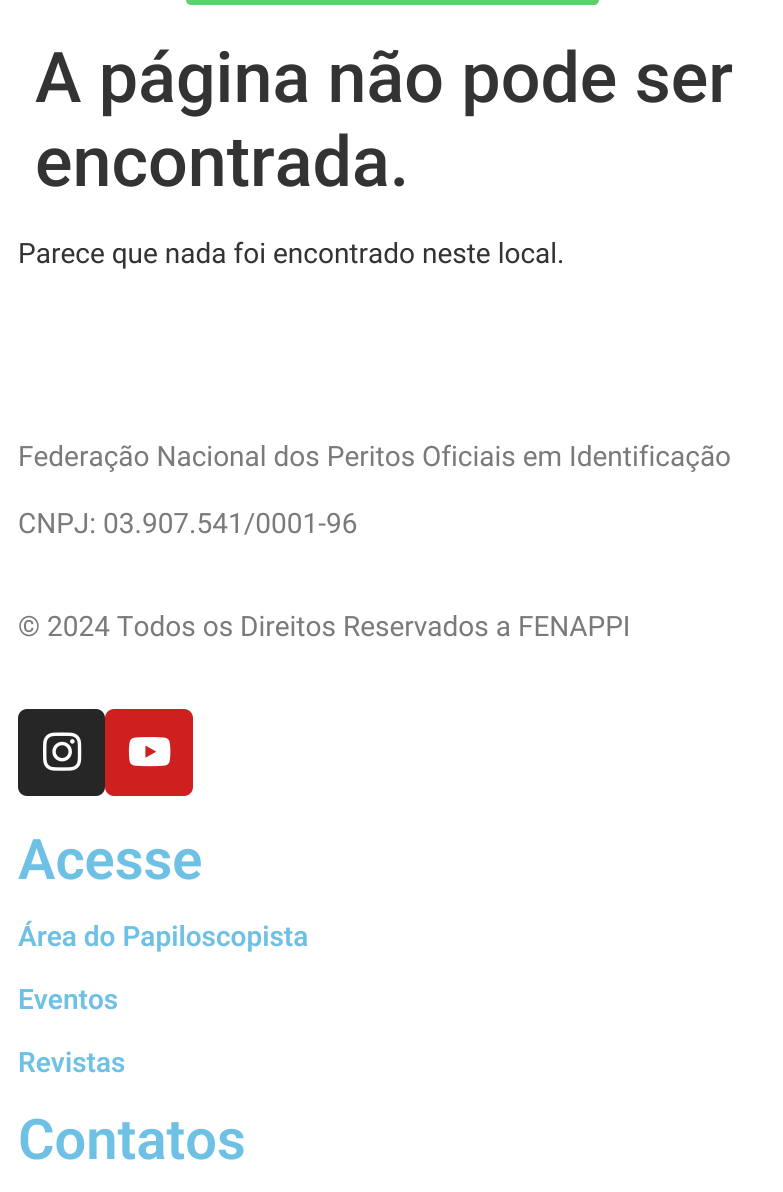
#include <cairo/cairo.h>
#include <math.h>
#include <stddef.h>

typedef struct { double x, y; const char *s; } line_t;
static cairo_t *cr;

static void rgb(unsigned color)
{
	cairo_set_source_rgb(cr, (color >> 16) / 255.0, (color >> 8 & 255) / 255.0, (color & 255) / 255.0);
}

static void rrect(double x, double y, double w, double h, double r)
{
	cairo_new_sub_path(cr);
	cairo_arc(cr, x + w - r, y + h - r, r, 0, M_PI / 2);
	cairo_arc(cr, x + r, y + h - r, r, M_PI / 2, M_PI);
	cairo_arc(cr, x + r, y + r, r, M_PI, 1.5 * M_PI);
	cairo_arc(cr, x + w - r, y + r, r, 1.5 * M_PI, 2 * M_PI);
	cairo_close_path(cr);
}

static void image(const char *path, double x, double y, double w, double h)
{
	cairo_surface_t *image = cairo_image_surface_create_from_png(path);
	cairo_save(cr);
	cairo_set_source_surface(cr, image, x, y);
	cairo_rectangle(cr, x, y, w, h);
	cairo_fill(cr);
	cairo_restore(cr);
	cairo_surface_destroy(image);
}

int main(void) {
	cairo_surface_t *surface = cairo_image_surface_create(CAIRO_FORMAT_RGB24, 783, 1192);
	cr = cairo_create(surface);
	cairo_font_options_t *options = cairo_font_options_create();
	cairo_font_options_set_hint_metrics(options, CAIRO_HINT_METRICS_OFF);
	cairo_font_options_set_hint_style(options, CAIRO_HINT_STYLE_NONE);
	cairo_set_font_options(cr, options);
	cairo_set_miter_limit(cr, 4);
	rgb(0xffffff);
	cairo_paint(cr);
	rgb(0x61ce70);
	rrect(186, -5, 413, 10, 5);
	cairo_fill(cr);
	rgb(0x262626);
	rrect(18, 709, 87, 87, 9);
	cairo_fill(cr);
	image("img/1.png", 43, 732, 39, 39);
	rgb(0xcd201f);
	rrect(105, 709, 88, 87, 9);
	cairo_fill(cr);
	image("img/2.png", 128, 737, 43, 30);
	cairo_select_font_face(cr, "Roboto Medium", CAIRO_FONT_SLANT_NORMAL, CAIRO_FONT_WEIGHT_NORMAL);
	cairo_set_font_size(cr, 70);
	rgb(0x333333);
	cairo_move_to(cr, 35, 102);
	cairo_show_text(cr, "A página não pode ser");
	cairo_move_to(cr, 35, 186);
	cairo_show_text(cr, "encontrada.");
	cairo_select_font_face(cr, "Roboto", CAIRO_FONT_SLANT_NORMAL, CAIRO_FONT_WEIGHT_NORMAL);
	cairo_set_font_size(cr, 28);
	cairo_move_to(cr, 18, 263);
	cairo_show_text(cr, "Parece que nada foi encontrado neste local.");
	rgb(0x7a7a7a);
	{
		static const line_t items[] = {
			{18, 466, "Federação Nacional dos Peritos Oficiais em Identificação"},
			{18, 533, "CNPJ: 03.907.541/0001-96"},
			{18, 636, "© 2024 Todos os Direitos Reservados a FENAPPI"},
		};
		for (size_t i = 0; i < sizeof items / sizeof *items; i++) {
			cairo_move_to(cr, items[i].x, items[i].y);
			cairo_show_text(cr, items[i].s);
		}
	}
	cairo_select_font_face(cr, "Roboto SemiBold", CAIRO_FONT_SLANT_NORMAL, CAIRO_FONT_WEIGHT_NORMAL);
	cairo_set_font_size(cr, 56);
	rgb(0x6ec1e4);
	cairo_move_to(cr, 18, 879);
	cairo_show_text(cr, "Acesse");
	cairo_set_font_size(cr, 28);
	{
		static const line_t items[] = {
			{18, 946, "Área do Papiloscopista"},
			{18, 1009, "Eventos"},
			{18, 1072, "Revistas"},
		};
		for (size_t i = 0; i < sizeof items / sizeof *items; i++) {
			cairo_move_to(cr, items[i].x, items[i].y);
			cairo_show_text(cr, items[i].s);
		}
	}
	cairo_set_font_size(cr, 56);
	cairo_move_to(cr, 18, 1159);
	cairo_show_text(cr, "Contatos");
	cairo_surface_write_to_png(surface, "page.png");
	cairo_font_options_destroy(options);
	cairo_destroy(cr);
	cairo_surface_destroy(surface);
	return 0;
}
